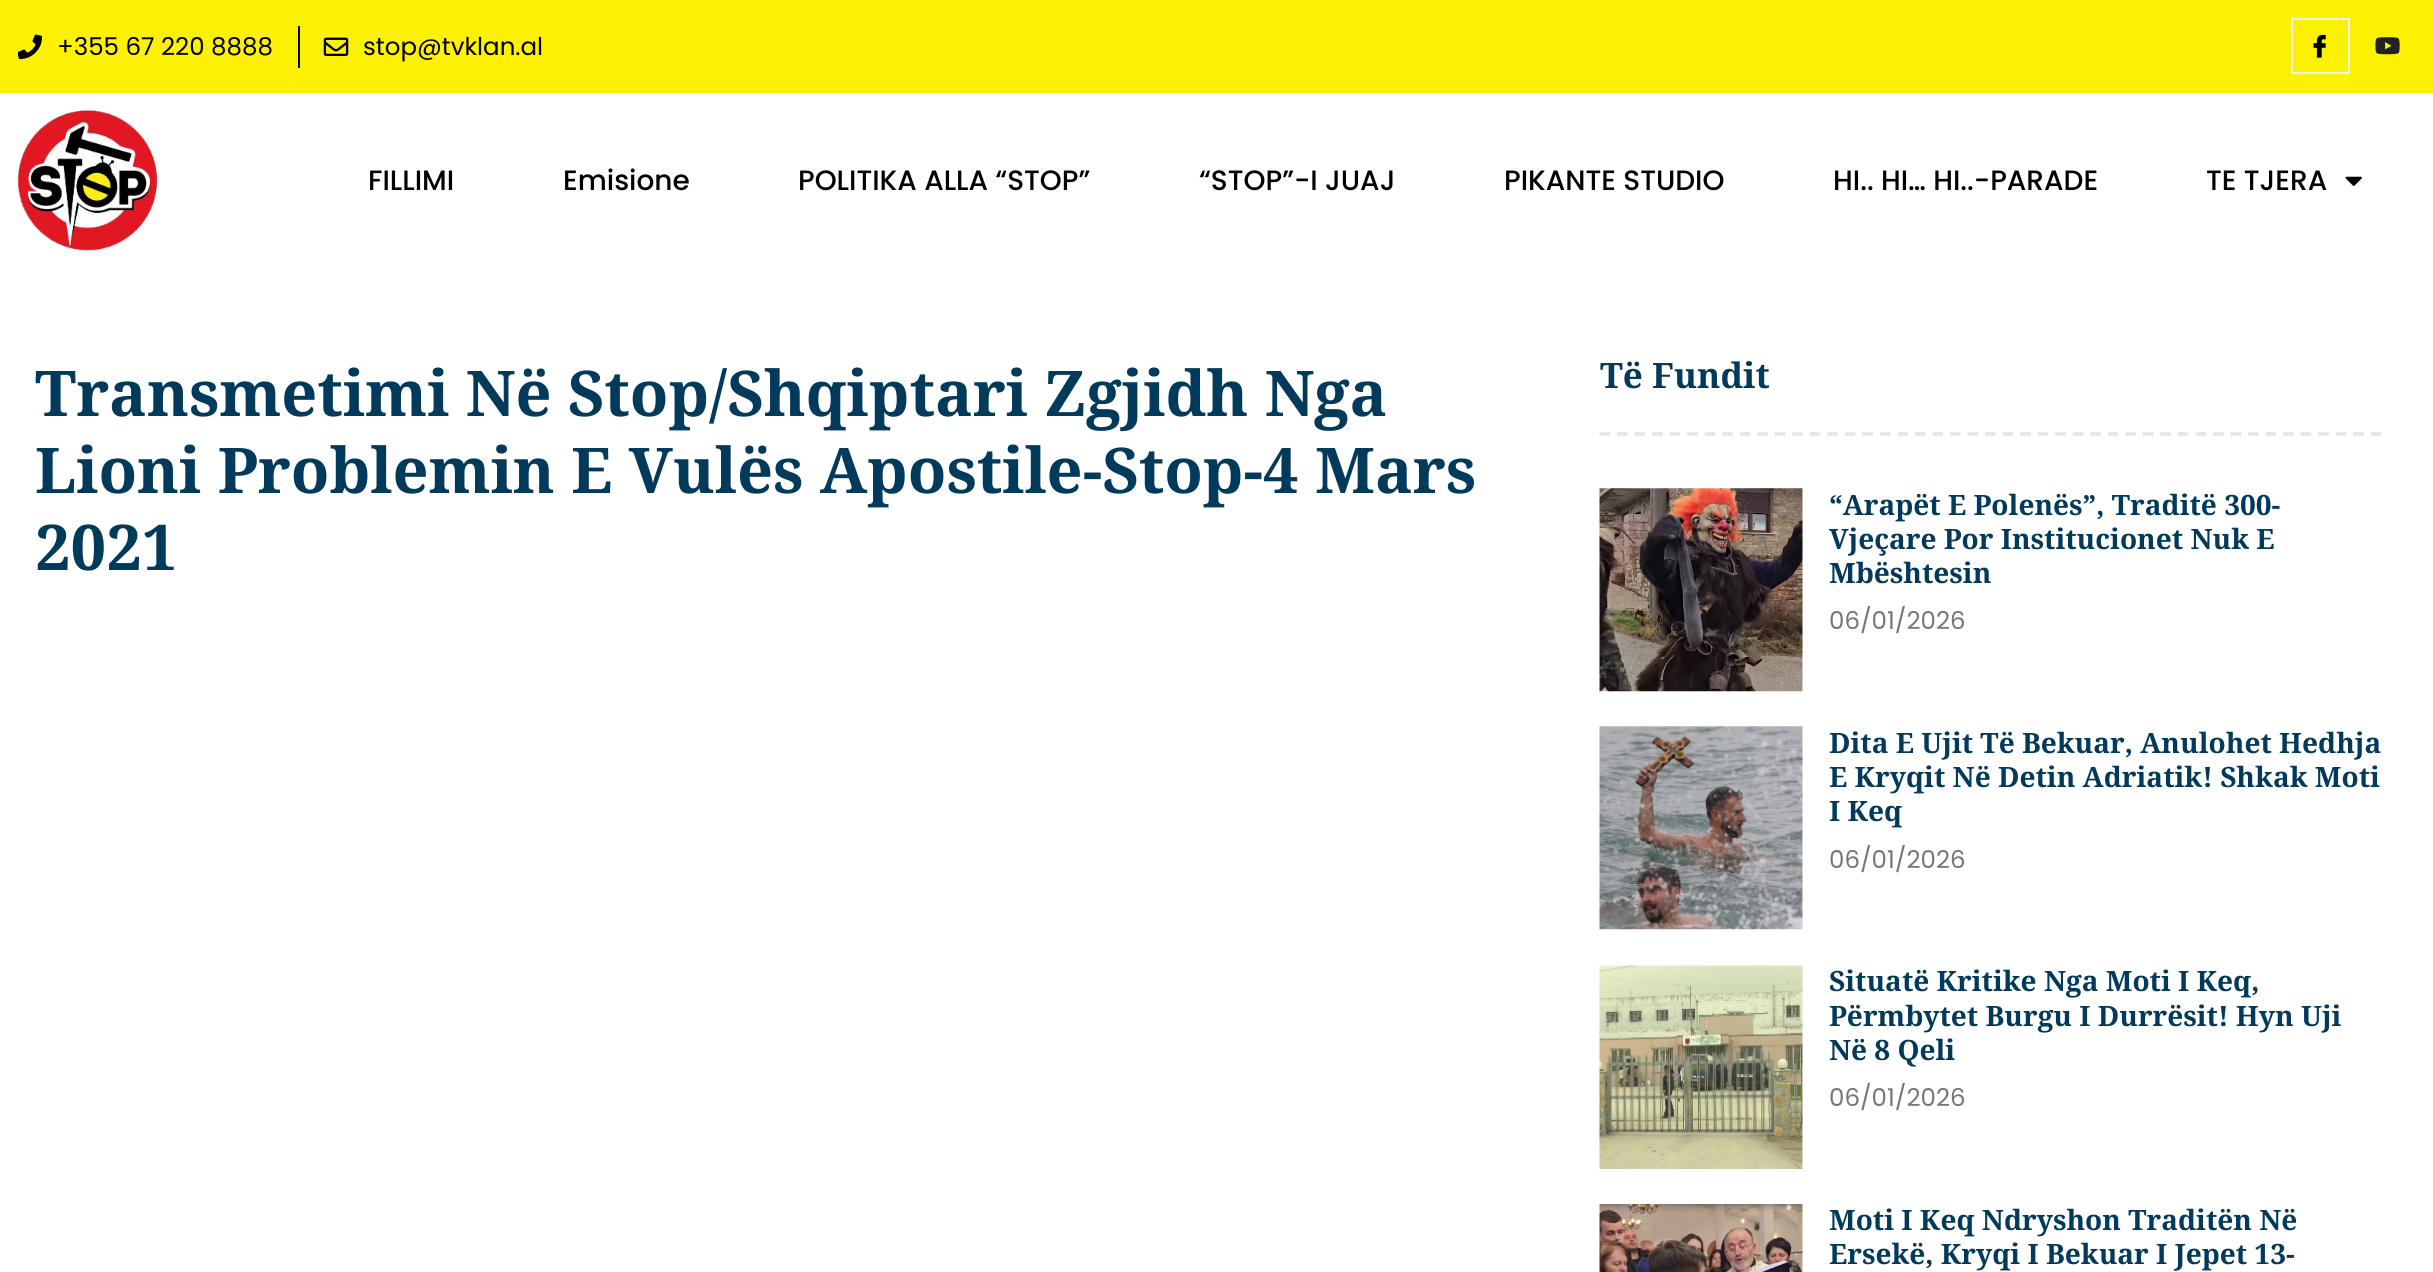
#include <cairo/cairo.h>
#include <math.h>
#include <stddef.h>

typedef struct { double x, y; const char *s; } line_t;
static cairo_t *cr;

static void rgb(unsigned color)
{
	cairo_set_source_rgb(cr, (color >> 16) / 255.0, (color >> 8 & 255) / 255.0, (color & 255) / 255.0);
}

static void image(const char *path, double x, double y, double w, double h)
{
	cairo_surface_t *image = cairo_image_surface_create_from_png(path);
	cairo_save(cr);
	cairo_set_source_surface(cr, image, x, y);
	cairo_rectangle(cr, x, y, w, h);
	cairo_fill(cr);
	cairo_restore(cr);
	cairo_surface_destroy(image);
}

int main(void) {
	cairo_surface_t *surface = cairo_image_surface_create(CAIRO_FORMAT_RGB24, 2433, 1272);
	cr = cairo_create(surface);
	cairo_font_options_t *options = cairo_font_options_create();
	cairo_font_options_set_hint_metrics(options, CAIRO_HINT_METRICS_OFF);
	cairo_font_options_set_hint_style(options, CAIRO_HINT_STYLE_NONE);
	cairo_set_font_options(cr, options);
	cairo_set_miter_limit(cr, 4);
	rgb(0xffffff);
	cairo_paint(cr);
	rgb(0xfcf100);
	cairo_rectangle(cr, 0, 0, 2433, 93);
	cairo_fill(cr);
	image("img/1.png", 18, 34, 24, 26);
	rgb(0x000000);
	cairo_rectangle(cr, 298, 26, 2, 42);
	cairo_fill(cr);
	image("img/2.png", 323, 37, 26, 19);
	cairo_rectangle(cr, 2292, 19, 57, 54);
	rgb(0xf1f1f1);
	cairo_stroke(cr);
	image("img/3.png", 2313, 34, 13, 24);
	image("img/4.png", 2375, 37, 25, 18);
	image("img/5.png", 17, 110, 141, 142);
	image("img/6.png", 2345, 176, 17, 10);
	cairo_new_path(cr);
	cairo_move_to(cr, 1599.5, 434);
	cairo_line_to(cr, 2382, 434);
	rgb(0xe5e5e5);
	cairo_set_line_width(cr, 3.5);
	cairo_set_dash(cr, (double[]){10.5, 7.03}, 2, 0);
	cairo_stroke(cr);
	image("img/7.png", 1599, 488, 204, 204);
	image("img/8.png", 1599, 726, 204, 204);
	image("img/9.png", 1599, 965, 204, 204);
	image("img/10.png", 1599, 1204, 204, 68);
	cairo_select_font_face(cr, "Poppins", CAIRO_FONT_SLANT_NORMAL, CAIRO_FONT_WEIGHT_NORMAL);
	cairo_set_font_size(cr, 24.5);
	rgb(0x000000);
	cairo_move_to(cr, 57, 55);
	cairo_show_text(cr, "+355 67 220 8888");
	cairo_move_to(cr, 363, 55);
	cairo_show_text(cr, "stop@tvklan.al");
	cairo_select_font_face(cr, "Poppins Medium", CAIRO_FONT_SLANT_NORMAL, CAIRO_FONT_WEIGHT_NORMAL);
	cairo_set_font_size(cr, 28);
	{
		static const line_t items[] = {
			{368, 190, "FILLIMI"},
			{563, 190, "Emisione"},
			{798, 190, "POLITIKA ALLA “STOP”"},
			{1199, 190, "“STOP”-I JUAJ"},
			{1504, 190, "PIKANTE STUDIO"},
			{1833, 190, "HI.. HI… HI..-PARADE"},
			{2206, 190, "TE TJERA"},
		};
		for (size_t i = 0; i < sizeof items / sizeof *items; i++) {
			cairo_move_to(cr, items[i].x, items[i].y);
			cairo_show_text(cr, items[i].s);
		}
	}
	cairo_select_font_face(cr, "Noto Serif", CAIRO_FONT_SLANT_NORMAL, CAIRO_FONT_WEIGHT_BOLD);
	cairo_set_font_size(cr, 63);
	rgb(0x023a5b);
	{
		static const line_t items[] = {
			{35, 416, "Transmetimi Në Stop/Shqiptari Zgjidh Nga"},
			{35, 493, "Lioni Problemin E Vulës Apostile-Stop-4 Mars"},
			{35, 570, "2021"},
		};
		for (size_t i = 0; i < sizeof items / sizeof *items; i++) {
			cairo_move_to(cr, items[i].x, items[i].y);
			cairo_show_text(cr, items[i].s);
		}
	}
	cairo_set_font_size(cr, 35);
	cairo_move_to(cr, 1600, 388);
	cairo_show_text(cr, "Të Fundit");
	cairo_set_font_size(cr, 28);
	{
		static const line_t items[] = {
			{1829, 515, "“Arapët E Polenës”, Traditë 300-"},
			{1829, 549, "Vjeçare Por Institucionet Nuk E"},
			{1829, 583, "Mbështesin"},
		};
		for (size_t i = 0; i < sizeof items / sizeof *items; i++) {
			cairo_move_to(cr, items[i].x, items[i].y);
			cairo_show_text(cr, items[i].s);
		}
	}
	cairo_select_font_face(cr, "Poppins", CAIRO_FONT_SLANT_NORMAL, CAIRO_FONT_WEIGHT_NORMAL);
	cairo_set_font_size(cr, 24.5);
	rgb(0x777777);
	cairo_move_to(cr, 1829, 629);
	cairo_show_text(cr, "06/01/2026");
	cairo_select_font_face(cr, "Noto Serif", CAIRO_FONT_SLANT_NORMAL, CAIRO_FONT_WEIGHT_BOLD);
	cairo_set_font_size(cr, 28);
	rgb(0x023a5b);
	{
		static const line_t items[] = {
			{1829, 753, "Dita E Ujit Të Bekuar, Anulohet Hedhja"},
			{1829, 787, "E Kryqit Në Detin Adriatik! Shkak Moti"},
			{1829, 821, "I Keq"},
		};
		for (size_t i = 0; i < sizeof items / sizeof *items; i++) {
			cairo_move_to(cr, items[i].x, items[i].y);
			cairo_show_text(cr, items[i].s);
		}
	}
	cairo_select_font_face(cr, "Poppins", CAIRO_FONT_SLANT_NORMAL, CAIRO_FONT_WEIGHT_NORMAL);
	cairo_set_font_size(cr, 24.5);
	rgb(0x777777);
	cairo_move_to(cr, 1829, 868);
	cairo_show_text(cr, "06/01/2026");
	cairo_select_font_face(cr, "Noto Serif", CAIRO_FONT_SLANT_NORMAL, CAIRO_FONT_WEIGHT_BOLD);
	cairo_set_font_size(cr, 28);
	rgb(0x023a5b);
	{
		static const line_t items[] = {
			{1829, 991, "Situatë Kritike Nga Moti I Keq,"},
			{1829, 1026, "Përmbytet Burgu I Durrësit! Hyn Uji"},
			{1829, 1060, "Në 8 Qeli"},
		};
		for (size_t i = 0; i < sizeof items / sizeof *items; i++) {
			cairo_move_to(cr, items[i].x, items[i].y);
			cairo_show_text(cr, items[i].s);
		}
	}
	cairo_select_font_face(cr, "Poppins", CAIRO_FONT_SLANT_NORMAL, CAIRO_FONT_WEIGHT_NORMAL);
	cairo_set_font_size(cr, 24.5);
	rgb(0x777777);
	cairo_move_to(cr, 1829, 1106);
	cairo_show_text(cr, "06/01/2026");
	cairo_select_font_face(cr, "Noto Serif", CAIRO_FONT_SLANT_NORMAL, CAIRO_FONT_WEIGHT_BOLD);
	cairo_set_font_size(cr, 28);
	rgb(0x023a5b);
	cairo_move_to(cr, 1829, 1230);
	cairo_show_text(cr, "Moti I Keq Ndryshon Traditën Në");
	cairo_move_to(cr, 1829, 1264);
	cairo_show_text(cr, "Ersekë, Kryqi I Bekuar I Jepet 13-");
	cairo_surface_write_to_png(surface, "page.png");
	cairo_font_options_destroy(options);
	cairo_destroy(cr);
	cairo_surface_destroy(surface);
	return 0;
}
